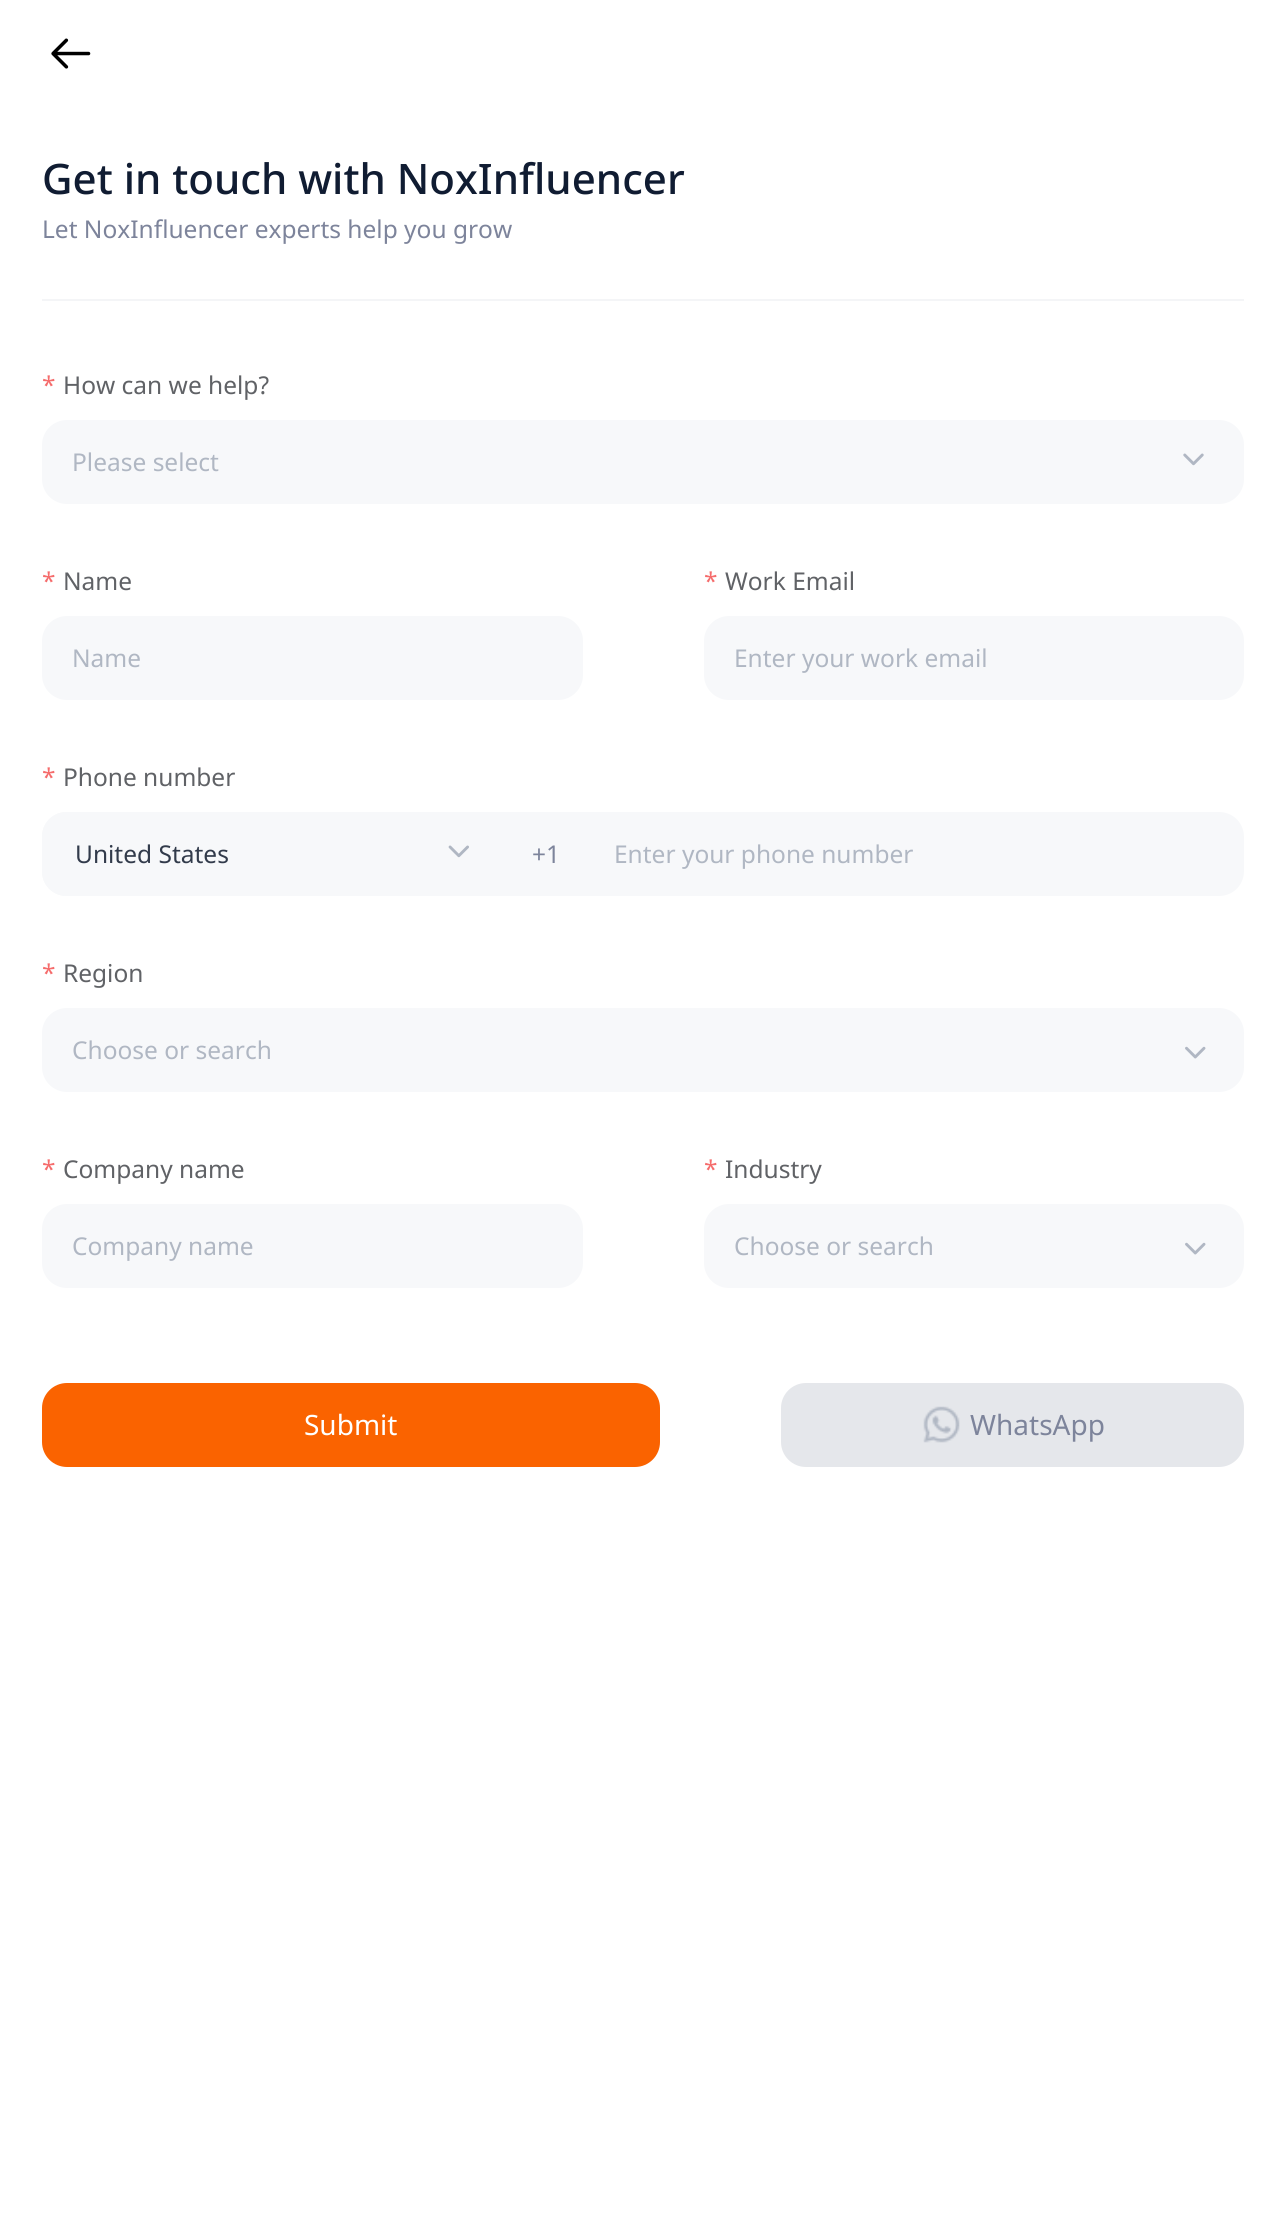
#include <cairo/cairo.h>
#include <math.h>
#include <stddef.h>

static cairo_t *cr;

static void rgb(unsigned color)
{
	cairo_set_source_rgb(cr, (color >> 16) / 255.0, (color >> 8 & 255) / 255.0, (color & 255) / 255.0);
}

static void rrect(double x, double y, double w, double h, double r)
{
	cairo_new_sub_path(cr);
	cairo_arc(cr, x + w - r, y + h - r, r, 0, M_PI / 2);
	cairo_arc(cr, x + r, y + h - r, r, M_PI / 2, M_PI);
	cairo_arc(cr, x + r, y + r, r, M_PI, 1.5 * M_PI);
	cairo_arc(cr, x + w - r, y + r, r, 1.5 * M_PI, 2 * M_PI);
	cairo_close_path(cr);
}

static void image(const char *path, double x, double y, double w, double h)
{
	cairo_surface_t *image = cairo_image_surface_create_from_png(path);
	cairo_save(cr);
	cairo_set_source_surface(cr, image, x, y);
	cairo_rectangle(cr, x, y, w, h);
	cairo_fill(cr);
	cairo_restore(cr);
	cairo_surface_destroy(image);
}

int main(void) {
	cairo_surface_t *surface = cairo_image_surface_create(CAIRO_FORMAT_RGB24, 1286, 2222);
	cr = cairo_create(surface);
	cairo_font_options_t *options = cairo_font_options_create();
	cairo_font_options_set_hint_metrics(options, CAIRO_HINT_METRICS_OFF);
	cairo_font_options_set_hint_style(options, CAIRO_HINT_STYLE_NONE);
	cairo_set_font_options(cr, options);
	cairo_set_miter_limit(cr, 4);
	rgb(0xffffff);
	cairo_paint(cr);
	image("img/1.png", 51, 38, 40, 31);
	rgb(0xf4f5f7);
	cairo_rectangle(cr, 42, 299, 1202, 2);
	cairo_fill(cr);
	rgb(0xf7f8fa);
	rrect(42, 420, 1202, 84, 25);
	cairo_fill(cr);
	image("img/2.png", 1183, 453, 21, 13);
	rrect(42, 616, 541, 84, 25);
	cairo_fill(cr);
	rrect(704, 616, 540, 84, 25);
	cairo_fill(cr);
	cairo_new_path(cr);
	cairo_move_to(cr, 67, 812);
	cairo_line_to(cr, 509, 812);
	cairo_line_to(cr, 509, 896);
	cairo_line_to(cr, 67, 896);
	cairo_curve_to(cr, 53, 896, 42, 885, 42, 871);
	cairo_line_to(cr, 42, 837);
	cairo_curve_to(cr, 42, 823, 53, 812, 67, 812);
	cairo_close_path(cr);
	cairo_fill(cr);
	cairo_set_fill_rule(cr, CAIRO_FILL_RULE_EVEN_ODD);
	cairo_new_path(cr);
	cairo_move_to(cr, 66, 812);
	cairo_line_to(cr, 509, 812);
	cairo_line_to(cr, 509, 896);
	cairo_line_to(cr, 66, 896);
	cairo_curve_to(cr, 53, 896, 42, 885, 42, 872);
	cairo_line_to(cr, 42, 836);
	cairo_curve_to(cr, 42, 823, 53, 812, 66, 812);
	cairo_close_path(cr);
	cairo_move_to(cr, 66, 816);
	cairo_line_to(cr, 509, 816);
	cairo_line_to(cr, 509, 892);
	cairo_line_to(cr, 66, 892);
	cairo_curve_to(cr, 55, 892, 46, 883, 46, 872);
	cairo_line_to(cr, 46, 836);
	cairo_curve_to(cr, 46, 825, 55, 816, 66, 816);
	cairo_close_path(cr);
	cairo_fill(cr);
	image("img/3.png", 448, 845, 21, 13);
	cairo_new_path(cr);
	cairo_move_to(cr, 509, 812);
	cairo_line_to(cr, 1219, 812);
	cairo_curve_to(cr, 1233, 812, 1244, 823, 1244, 837);
	cairo_line_to(cr, 1244, 871);
	cairo_curve_to(cr, 1244, 885, 1233, 896, 1219, 896);
	cairo_line_to(cr, 509, 896);
	cairo_close_path(cr);
	cairo_fill(cr);
	rrect(42, 1008, 1202, 84, 25);
	cairo_fill(cr);
	image("img/4.png", 1185, 1046, 21, 13);
	rrect(42, 1204, 541, 84, 25);
	cairo_fill(cr);
	rrect(704, 1204, 540, 84, 25);
	cairo_fill(cr);
	image("img/4.png", 1185, 1242, 21, 13);
	rgb(0xfa6300);
	rrect(42, 1383, 618, 84, 25);
	cairo_fill(cr);
	rgb(0xe5e7eb);
	rrect(781, 1383, 463, 84, 25);
	cairo_fill(cr);
	image("img/5.png", 923, 1406, 37, 37);
	cairo_select_font_face(cr, "Noto Sans Medium", CAIRO_FONT_SLANT_NORMAL, CAIRO_FONT_WEIGHT_NORMAL);
	cairo_set_font_size(cr, 42);
	rgb(0x101c32);
	cairo_move_to(cr, 42, 194);
	cairo_show_text(cr, "Get in touch with NoxInfluencer");
	cairo_select_font_face(cr, "Noto Sans", CAIRO_FONT_SLANT_NORMAL, CAIRO_FONT_WEIGHT_NORMAL);
	cairo_set_font_size(cr, 24.5);
	rgb(0x7d849b);
	cairo_move_to(cr, 42, 238);
	cairo_show_text(cr, "Let NoxInfluencer experts help you grow");
	rgb(0xf56c6c);
	cairo_move_to(cr, 42, 394);
	cairo_show_text(cr, "*");
	rgb(0x606266);
	cairo_move_to(cr, 63, 394);
	cairo_show_text(cr, "How can we help?");
	rgb(0xb0b7c3);
	cairo_move_to(cr, 72, 471);
	cairo_show_text(cr, "Please select");
	rgb(0xf56c6c);
	cairo_move_to(cr, 42, 590);
	cairo_show_text(cr, "*");
	rgb(0x606266);
	cairo_move_to(cr, 63, 590);
	cairo_show_text(cr, "Name");
	rgb(0xb0b7c3);
	cairo_move_to(cr, 72, 667);
	cairo_show_text(cr, "Name");
	rgb(0xf56c6c);
	cairo_move_to(cr, 704, 590);
	cairo_show_text(cr, "*");
	rgb(0x606266);
	cairo_move_to(cr, 725, 590);
	cairo_show_text(cr, "Work Email");
	rgb(0xb0b7c3);
	cairo_move_to(cr, 734, 667);
	cairo_show_text(cr, "Enter your work email");
	rgb(0xf56c6c);
	cairo_move_to(cr, 42, 786);
	cairo_show_text(cr, "*");
	rgb(0x606266);
	cairo_move_to(cr, 63, 786);
	cairo_show_text(cr, "Phone number");
	rgb(0x323b4b);
	cairo_move_to(cr, 75, 863);
	cairo_show_text(cr, "United States");
	rgb(0x7d849b);
	cairo_move_to(cr, 532, 863);
	cairo_show_text(cr, "+1");
	rgb(0xb0b7c3);
	cairo_move_to(cr, 614, 863);
	cairo_show_text(cr, "Enter your phone number");
	rgb(0xf56c6c);
	cairo_move_to(cr, 42, 982);
	cairo_show_text(cr, "*");
	rgb(0x606266);
	cairo_move_to(cr, 63, 982);
	cairo_show_text(cr, "Region");
	rgb(0xb0b7c3);
	cairo_move_to(cr, 72, 1059);
	cairo_show_text(cr, "Choose or search");
	rgb(0xf56c6c);
	cairo_move_to(cr, 42, 1178);
	cairo_show_text(cr, "*");
	rgb(0x606266);
	cairo_move_to(cr, 63, 1178);
	cairo_show_text(cr, "Company name");
	rgb(0xb0b7c3);
	cairo_move_to(cr, 72, 1255);
	cairo_show_text(cr, "Company name");
	rgb(0xf56c6c);
	cairo_move_to(cr, 704, 1178);
	cairo_show_text(cr, "*");
	rgb(0x606266);
	cairo_move_to(cr, 725, 1178);
	cairo_show_text(cr, "Industry");
	rgb(0xb0b7c3);
	cairo_move_to(cr, 734, 1255);
	cairo_show_text(cr, "Choose or search");
	cairo_set_font_size(cr, 28);
	rgb(0xffffff);
	cairo_move_to(cr, 304, 1435);
	cairo_show_text(cr, "Submit");
	rgb(0x7d849b);
	cairo_move_to(cr, 970, 1435);
	cairo_show_text(cr, "WhatsApp");
	cairo_surface_write_to_png(surface, "page.png");
	cairo_font_options_destroy(options);
	cairo_destroy(cr);
	cairo_surface_destroy(surface);
	return 0;
}
